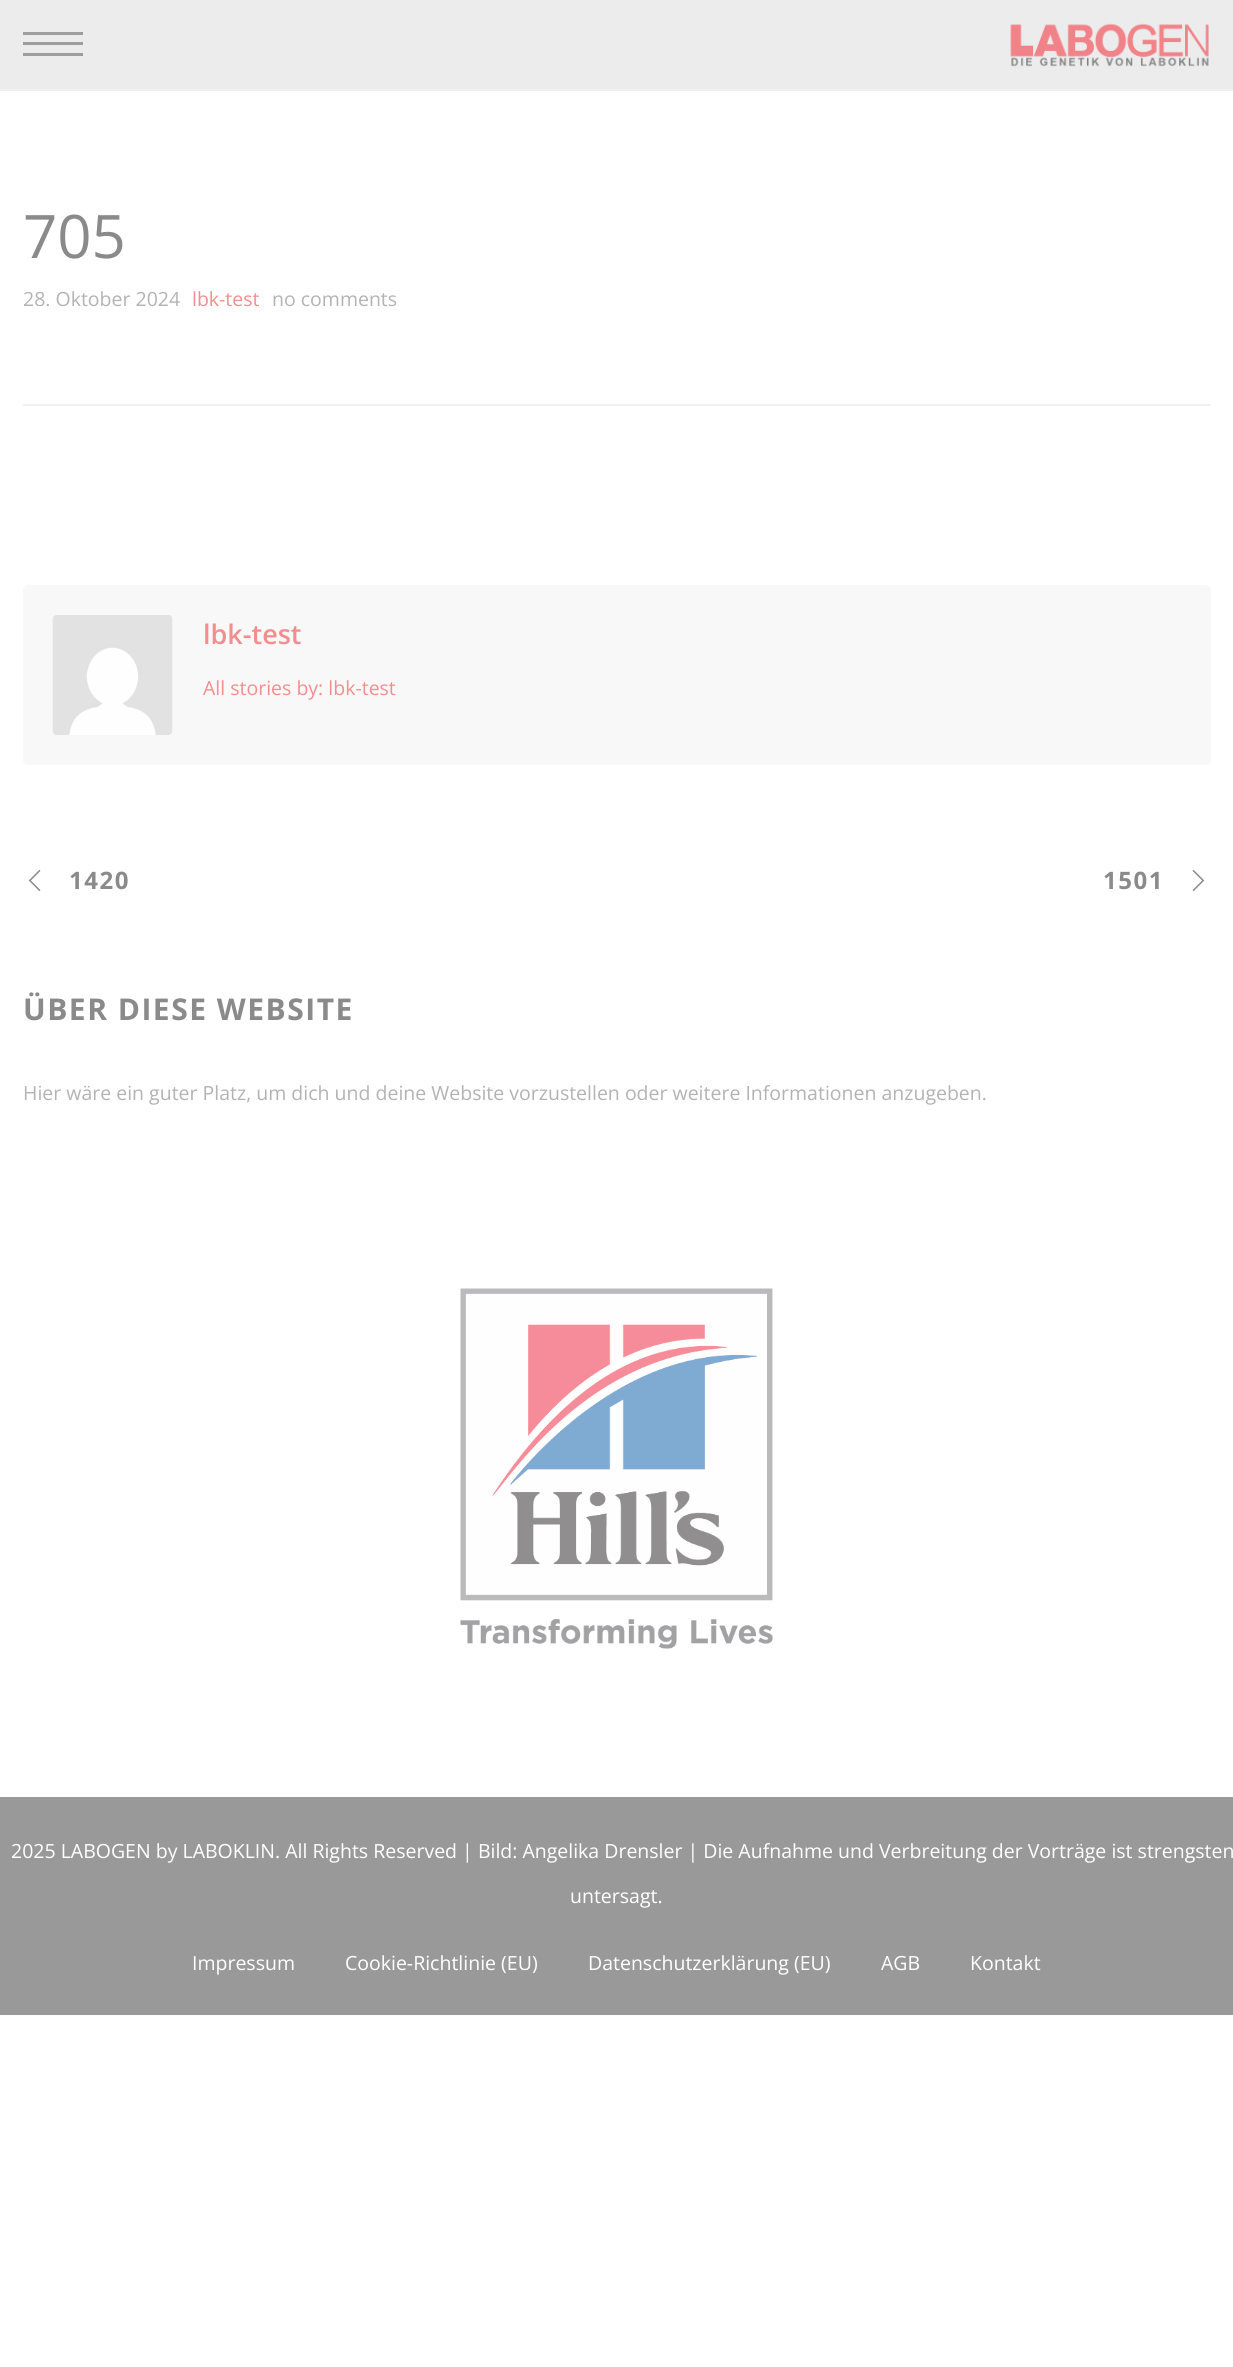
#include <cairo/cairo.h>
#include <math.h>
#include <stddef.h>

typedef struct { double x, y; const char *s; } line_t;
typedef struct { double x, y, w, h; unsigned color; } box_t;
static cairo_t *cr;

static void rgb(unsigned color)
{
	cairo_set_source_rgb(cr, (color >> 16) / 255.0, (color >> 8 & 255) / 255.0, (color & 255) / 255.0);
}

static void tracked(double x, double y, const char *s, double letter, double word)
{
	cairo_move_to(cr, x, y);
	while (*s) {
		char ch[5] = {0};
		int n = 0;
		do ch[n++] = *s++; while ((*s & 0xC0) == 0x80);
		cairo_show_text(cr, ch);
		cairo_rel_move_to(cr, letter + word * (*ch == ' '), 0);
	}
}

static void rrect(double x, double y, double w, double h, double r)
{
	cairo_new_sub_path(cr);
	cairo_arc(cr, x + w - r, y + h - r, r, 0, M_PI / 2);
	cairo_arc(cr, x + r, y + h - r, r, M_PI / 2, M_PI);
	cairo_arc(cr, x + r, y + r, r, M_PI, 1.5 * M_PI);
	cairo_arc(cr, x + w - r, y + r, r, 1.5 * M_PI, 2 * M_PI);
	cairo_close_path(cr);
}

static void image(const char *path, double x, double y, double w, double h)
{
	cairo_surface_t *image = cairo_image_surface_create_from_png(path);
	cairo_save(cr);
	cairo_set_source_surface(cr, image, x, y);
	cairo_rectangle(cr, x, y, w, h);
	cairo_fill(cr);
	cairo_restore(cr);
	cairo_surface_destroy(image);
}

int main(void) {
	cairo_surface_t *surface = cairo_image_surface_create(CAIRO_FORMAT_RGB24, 1233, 2367);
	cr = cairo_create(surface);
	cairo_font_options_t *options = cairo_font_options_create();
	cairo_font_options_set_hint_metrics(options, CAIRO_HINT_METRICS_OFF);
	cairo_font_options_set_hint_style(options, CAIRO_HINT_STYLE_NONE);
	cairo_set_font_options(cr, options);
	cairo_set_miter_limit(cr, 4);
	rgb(0xffffff);
	cairo_paint(cr);
	{
		static const box_t items[] = {
			{0, 0, 1233, 89, 0xececec},
			{0, 89, 1233, 2, 0xefefef},
			{23, 42, 60, 3, 0x9e9e9e},
			{23, 32, 60, 3, 0x9e9e9e},
			{23, 53, 60, 3, 0x9e9e9e},
		};
		for (size_t i = 0; i < sizeof items / sizeof *items; i++) {
			rgb(items[i].color);
			cairo_rectangle(cr, items[i].x, items[i].y, items[i].w, items[i].h);
			cairo_fill(cr);
		}
	}
	image("img/1.png", 1010, 23, 199, 44);
	rgb(0xf2f2f2);
	cairo_rectangle(cr, 23, 404, 1188, 2);
	cairo_fill(cr);
	rgb(0xf8f8f8);
	rrect(23, 585, 1188, 180, 5);
	cairo_fill(cr);
	image("img/2.png", 52, 615, 121, 120);
	image("img/3.png", 28, 870, 13, 21);
	image("img/4.png", 1192, 870, 13, 21);
	image("img/5.png", 460, 1288, 313, 361);
	rgb(0x999999);
	cairo_rectangle(cr, 0, 1797, 1233, 218);
	cairo_fill(cr);
	cairo_select_font_face(cr, "Open Sans", CAIRO_FONT_SLANT_NORMAL, CAIRO_FONT_WEIGHT_NORMAL);
	cairo_set_font_size(cr, 60);
	rgb(0x8a8a8a);
	cairo_move_to(cr, 23, 258);
	cairo_show_text(cr, "705");
	cairo_set_font_size(cr, 19.5);
	rgb(0xb3b3b3);
	cairo_move_to(cr, 23, 306);
	cairo_show_text(cr, "28. Oktober 2024");
	rgb(0xf28e8e);
	cairo_move_to(cr, 192, 306);
	cairo_show_text(cr, "lbk-test");
	rgb(0xb3b3b3);
	cairo_move_to(cr, 272, 306);
	cairo_show_text(cr, "no comments");
	cairo_select_font_face(cr, "Open Sans SemiBold", CAIRO_FONT_SLANT_NORMAL, CAIRO_FONT_WEIGHT_NORMAL);
	cairo_set_font_size(cr, 27);
	rgb(0xf28e8e);
	cairo_move_to(cr, 203, 644);
	cairo_show_text(cr, "lbk-test");
	cairo_select_font_face(cr, "Open Sans", CAIRO_FONT_SLANT_NORMAL, CAIRO_FONT_WEIGHT_NORMAL);
	cairo_set_font_size(cr, 19.5);
	cairo_move_to(cr, 203, 695);
	cairo_show_text(cr, "All stories by: lbk-test");
	cairo_select_font_face(cr, "Open Sans", CAIRO_FONT_SLANT_NORMAL, CAIRO_FONT_WEIGHT_BOLD);
	cairo_set_font_size(cr, 24);
	rgb(0x8a8a8a);
	tracked(69, 889, "1420", 1.5, 0);
	tracked(1103, 889, "1501", 1.5, 0);
	cairo_set_font_size(cr, 30);
	tracked(23, 1020, "ÜBER DIESE WEBSITE", 1.5, 0);
	cairo_select_font_face(cr, "Open Sans", CAIRO_FONT_SLANT_NORMAL, CAIRO_FONT_WEIGHT_NORMAL);
	cairo_set_font_size(cr, 19.5);
	rgb(0xb3b3b3);
	cairo_move_to(cr, 23, 1100);
	cairo_show_text(cr, "Hier wäre ein guter Platz, um dich und deine Website vorzustellen oder weitere Informationen anzugeben.");
	rgb(0xffffff);
	{
		static const line_t items[] = {
			{11, 1858, "2025 LABOGEN by LABOKLIN. All Rights Reserved | Bild: Angelika Drensler | Die Aufnahme und Verbreitung der Vorträge ist strengsten"},
			{570, 1903, "untersagt."},
			{192, 1970, "Impressum"},
			{345, 1970, "Cookie-Richtlinie (EU)"},
			{588, 1970, "Datenschutzerklärung (EU)"},
			{881, 1970, "AGB"},
			{970, 1970, "Kontakt"},
		};
		for (size_t i = 0; i < sizeof items / sizeof *items; i++) {
			cairo_move_to(cr, items[i].x, items[i].y);
			cairo_show_text(cr, items[i].s);
		}
	}
	cairo_surface_write_to_png(surface, "page.png");
	cairo_font_options_destroy(options);
	cairo_destroy(cr);
	cairo_surface_destroy(surface);
	return 0;
}
